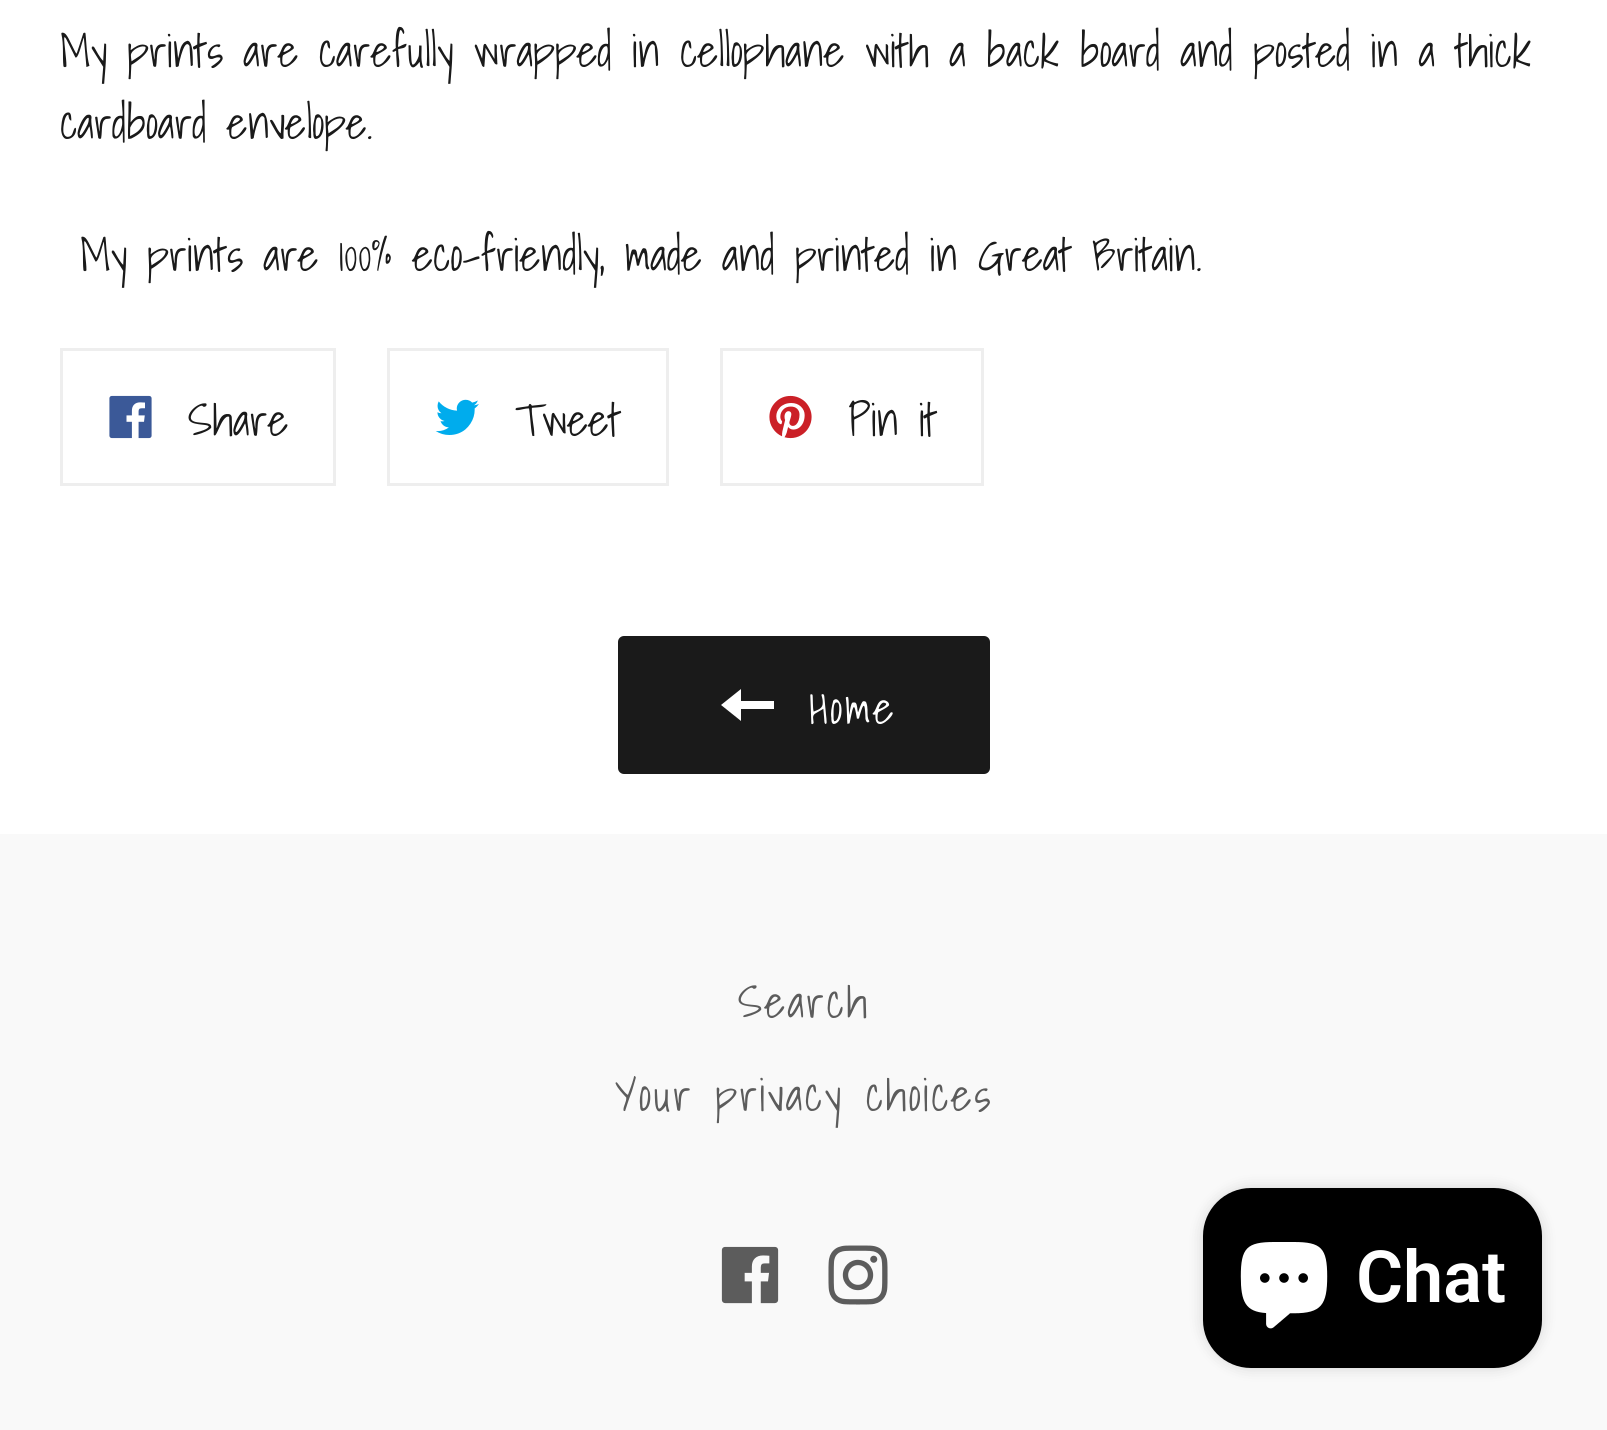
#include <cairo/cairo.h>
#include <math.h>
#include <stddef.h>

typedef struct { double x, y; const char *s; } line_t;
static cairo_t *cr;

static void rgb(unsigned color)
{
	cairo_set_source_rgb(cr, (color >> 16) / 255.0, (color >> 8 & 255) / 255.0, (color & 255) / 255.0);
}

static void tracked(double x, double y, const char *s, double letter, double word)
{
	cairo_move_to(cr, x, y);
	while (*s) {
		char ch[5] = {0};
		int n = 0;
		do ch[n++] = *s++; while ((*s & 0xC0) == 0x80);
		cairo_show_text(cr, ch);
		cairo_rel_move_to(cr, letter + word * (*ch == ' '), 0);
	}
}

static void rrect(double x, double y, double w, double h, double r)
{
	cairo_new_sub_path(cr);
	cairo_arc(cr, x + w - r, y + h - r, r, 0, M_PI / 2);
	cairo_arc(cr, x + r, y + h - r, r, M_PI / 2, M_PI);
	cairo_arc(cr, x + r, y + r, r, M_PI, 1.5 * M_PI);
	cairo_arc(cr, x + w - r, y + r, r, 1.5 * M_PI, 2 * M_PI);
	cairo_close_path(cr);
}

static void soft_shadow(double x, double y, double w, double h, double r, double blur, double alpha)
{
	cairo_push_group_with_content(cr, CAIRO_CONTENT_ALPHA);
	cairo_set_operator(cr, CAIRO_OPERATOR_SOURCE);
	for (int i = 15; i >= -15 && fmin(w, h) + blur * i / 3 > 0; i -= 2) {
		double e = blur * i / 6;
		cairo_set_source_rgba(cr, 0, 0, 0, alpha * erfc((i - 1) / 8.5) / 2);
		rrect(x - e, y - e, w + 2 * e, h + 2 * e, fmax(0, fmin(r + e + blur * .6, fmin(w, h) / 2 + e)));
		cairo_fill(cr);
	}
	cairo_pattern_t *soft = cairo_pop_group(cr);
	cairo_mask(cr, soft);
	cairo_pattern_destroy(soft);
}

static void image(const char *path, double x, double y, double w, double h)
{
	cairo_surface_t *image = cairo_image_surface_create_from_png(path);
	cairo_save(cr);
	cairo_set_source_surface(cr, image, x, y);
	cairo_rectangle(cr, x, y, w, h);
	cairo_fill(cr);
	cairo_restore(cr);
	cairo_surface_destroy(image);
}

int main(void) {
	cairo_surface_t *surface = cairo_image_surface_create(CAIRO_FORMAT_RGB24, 1607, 1430);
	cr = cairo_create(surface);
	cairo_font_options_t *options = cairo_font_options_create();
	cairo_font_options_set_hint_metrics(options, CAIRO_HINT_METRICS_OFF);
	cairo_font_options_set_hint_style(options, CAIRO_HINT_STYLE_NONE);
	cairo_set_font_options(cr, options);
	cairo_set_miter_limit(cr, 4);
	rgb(0xffffff);
	cairo_paint(cr);
	cairo_rectangle(cr, 61.5, 349.5, 273, 135);
	rgb(0xeeeeee);
	cairo_set_line_width(cr, 3);
	cairo_stroke(cr);
	image("img/1.png", 109, 395, 43, 44);
	cairo_rectangle(cr, 388.5, 349.5, 279, 135);
	cairo_stroke(cr);
	image("img/2.png", 435, 399, 44, 36);
	cairo_rectangle(cr, 721.5, 349.5, 261, 135);
	cairo_stroke(cr);
	image("img/3.png", 769, 395, 43, 44);
	rgb(0x1a1a1a);
	rrect(618, 636, 372, 138, 6);
	cairo_fill(cr);
	rgb(0xffffff);
	cairo_new_path(cr);
	cairo_move_to(cr, 741, 701);
	cairo_line_to(cr, 741, 689);
	cairo_line_to(cr, 721, 705);
	cairo_line_to(cr, 741, 721);
	cairo_line_to(cr, 741, 709);
	cairo_line_to(cr, 774, 709);
	cairo_line_to(cr, 774, 701);
	cairo_close_path(cr);
	cairo_fill(cr);
	rgb(0xf9f9f9);
	cairo_rectangle(cr, 0, 834, 1607, 596);
	cairo_fill(cr);
	image("img/4.png", 721, 1246, 58, 58);
	image("img/5.png", 828, 1245, 60, 60);
	rgb(0x000000);
	soft_shadow(1203, 1188, 339, 180, 48, 7.5, 0.15);
	rgb(0x000000);
	rrect(1203, 1188, 339, 180, 48);
	cairo_fill(cr);
	image("img/6.png", 1240, 1242, 88, 87);
	cairo_select_font_face(cr, "Shadows Into Light", CAIRO_FONT_SLANT_NORMAL, CAIRO_FONT_WEIGHT_NORMAL);
	cairo_set_font_size(cr, 45);
	rgb(0x1a1a1a);
	{
		static const line_t items[] = {
			{60, 67, "My prints are carefully wrapped in cellophane with a back board and posted in a thick"},
			{60, 139, "cardboard envelope."},
			{80, 271, "My prints are 100% eco-friendly, made and printed in Great Britain."},
			{188, 436, "Share"},
			{515, 436, "Tweet"},
			{848, 436, "Pin it"},
		};
		for (size_t i = 0; i < sizeof items / sizeof *items; i++) {
			cairo_move_to(cr, items[i].x, items[i].y);
			cairo_show_text(cr, items[i].s);
		}
	}
	rgb(0xffffff);
	tracked(809, 724, "Home", 2.25, 0);
	rgb(0x5c5c5c);
	tracked(738, 1018, "Search", 2.25, 0);
	tracked(615, 1111, "Your privacy choices", 2.25, 0);
	cairo_select_font_face(cr, "Roboto SemiBold", CAIRO_FONT_SLANT_NORMAL, CAIRO_FONT_WEIGHT_NORMAL);
	cairo_set_font_size(cr, 72);
	rgb(0xffffff);
	cairo_move_to(cr, 1356, 1302);
	cairo_show_text(cr, "Chat");
	cairo_surface_write_to_png(surface, "page.png");
	cairo_font_options_destroy(options);
	cairo_destroy(cr);
	cairo_surface_destroy(surface);
	return 0;
}
